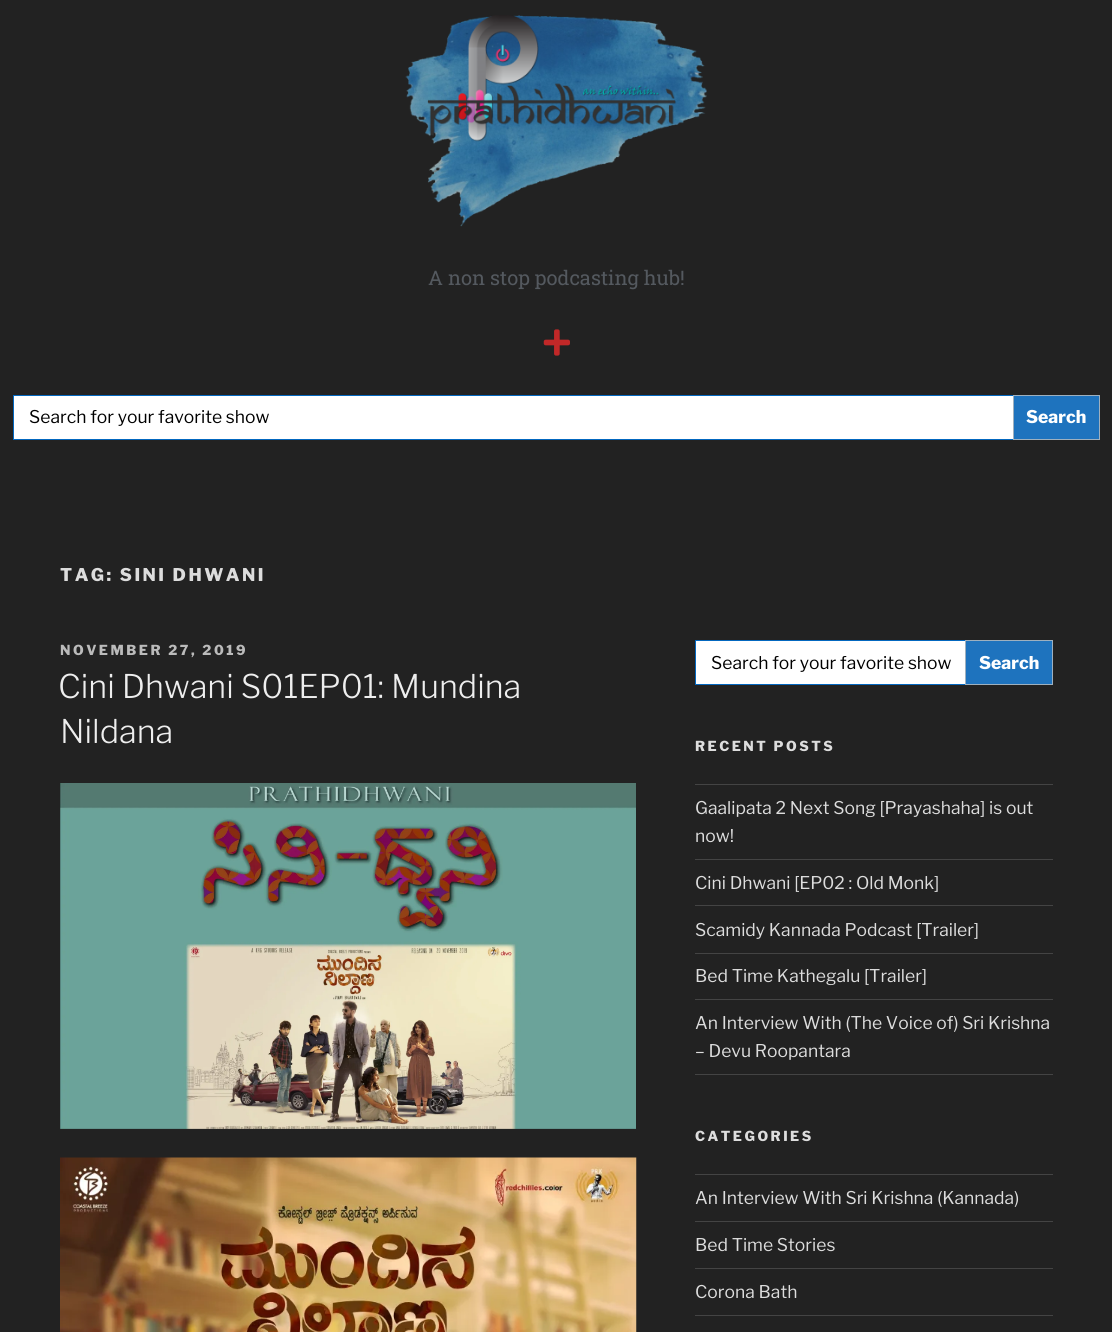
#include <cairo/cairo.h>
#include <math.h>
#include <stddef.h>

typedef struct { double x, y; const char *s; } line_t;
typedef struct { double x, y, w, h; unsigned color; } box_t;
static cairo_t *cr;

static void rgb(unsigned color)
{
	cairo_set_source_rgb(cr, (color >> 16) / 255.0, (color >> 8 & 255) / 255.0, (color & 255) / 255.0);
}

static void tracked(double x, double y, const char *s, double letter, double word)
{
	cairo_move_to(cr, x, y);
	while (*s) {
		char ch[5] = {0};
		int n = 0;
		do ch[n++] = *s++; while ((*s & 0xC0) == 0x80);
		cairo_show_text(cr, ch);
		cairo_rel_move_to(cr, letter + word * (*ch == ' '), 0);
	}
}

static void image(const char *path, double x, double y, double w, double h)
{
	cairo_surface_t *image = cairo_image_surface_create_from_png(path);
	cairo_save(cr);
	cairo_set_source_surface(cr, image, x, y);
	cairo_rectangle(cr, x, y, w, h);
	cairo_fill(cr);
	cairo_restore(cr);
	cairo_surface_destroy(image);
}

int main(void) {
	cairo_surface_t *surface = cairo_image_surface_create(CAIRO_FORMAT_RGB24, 1112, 1332);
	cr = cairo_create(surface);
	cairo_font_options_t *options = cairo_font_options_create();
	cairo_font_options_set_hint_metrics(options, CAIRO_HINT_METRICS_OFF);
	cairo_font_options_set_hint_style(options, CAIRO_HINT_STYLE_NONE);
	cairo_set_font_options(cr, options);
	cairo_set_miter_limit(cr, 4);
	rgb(0x222222);
	cairo_paint(cr);
	image("img/1.png", 405, 15, 302, 212);
	image("img/2.png", 543, 329, 27, 27);
	rgb(0xffffff);
	cairo_rectangle(cr, 14, 396, 999, 43);
	cairo_fill(cr);
	cairo_rectangle(cr, 13.5, 395.5, 1086, 44);
	rgb(0x0367bf);
	cairo_set_line_width(cr, 1);
	cairo_stroke(cr);
	rgb(0x1e73be);
	cairo_rectangle(cr, 1013.5, 395.5, 86, 44);
	cairo_fill_preserve(cr);
	rgb(0x9eb0bf);
	cairo_stroke(cr);
	image("img/3.png", 60, 783, 576, 346);
	image("img/4.png", 60, 1157, 577, 175);
	rgb(0xffffff);
	cairo_rectangle(cr, 696, 641, 269, 43);
	cairo_fill(cr);
	cairo_rectangle(cr, 695.5, 640.5, 357, 44);
	rgb(0x0367bf);
	cairo_stroke(cr);
	rgb(0x1e73be);
	cairo_rectangle(cr, 965.5, 640.5, 87, 44);
	cairo_fill_preserve(cr);
	rgb(0x9eb0bf);
	cairo_stroke(cr);
	{
		static const box_t items[] = {
			{695, 784, 358, 1, 0x444444},
			{695, 859, 358, 1, 0x444444},
			{695, 905, 358, 1, 0x444444},
			{695, 953, 358, 1, 0x444444},
			{695, 999, 358, 1, 0x444444},
			{695, 1074, 358, 1, 0x444444},
			{695, 1174, 358, 1, 0x444444},
			{695, 1221, 358, 1, 0x444444},
			{695, 1268, 358, 1, 0x444444},
			{695, 1315, 358, 1, 0x444444},
		};
		for (size_t i = 0; i < sizeof items / sizeof *items; i++) {
			rgb(items[i].color);
			cairo_rectangle(cr, items[i].x, items[i].y, items[i].w, items[i].h);
			cairo_fill(cr);
		}
	}
	cairo_select_font_face(cr, "Roboto Slab", CAIRO_FONT_SLANT_NORMAL, CAIRO_FONT_WEIGHT_NORMAL);
	cairo_set_font_size(cr, 20);
	rgb(0x54595f);
	cairo_move_to(cr, 428, 285);
	cairo_show_text(cr, "A non stop podcasting hub!");
	cairo_select_font_face(cr, "Libre Franklin Thin", CAIRO_FONT_SLANT_NORMAL, CAIRO_FONT_WEIGHT_NORMAL);
	cairo_set_font_size(cr, 17.5);
	rgb(0x000000);
	cairo_move_to(cr, 29, 423);
	cairo_show_text(cr, "Search for your favorite show");
	cairo_select_font_face(cr, "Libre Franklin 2 Thin", CAIRO_FONT_SLANT_NORMAL, CAIRO_FONT_WEIGHT_NORMAL);
	rgb(0xffffff);
	cairo_move_to(cr, 1026, 423);
	cairo_show_text(cr, "Search");
	rgb(0xdddddd);
	tracked(60, 581, "TAG: SINI DHWANI", 2.5, 0);
	cairo_set_font_size(cr, 13.75);
	rgb(0xbbbbbb);
	tracked(60, 655, "NOVEMBER 27, 2019", 2.5, 0);
	cairo_select_font_face(cr, "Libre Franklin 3 Thin", CAIRO_FONT_SLANT_NORMAL, CAIRO_FONT_WEIGHT_NORMAL);
	cairo_set_font_size(cr, 32.5);
	rgb(0xeeeeee);
	cairo_move_to(cr, 58, 698);
	cairo_show_text(cr, "Cini Dhwani S01EP01: Mundina");
	cairo_move_to(cr, 60, 743);
	cairo_show_text(cr, "Nildana");
	cairo_select_font_face(cr, "Libre Franklin Thin", CAIRO_FONT_SLANT_NORMAL, CAIRO_FONT_WEIGHT_NORMAL);
	cairo_set_font_size(cr, 17.5);
	rgb(0x000000);
	cairo_move_to(cr, 711, 669);
	cairo_show_text(cr, "Search for your favorite show");
	cairo_select_font_face(cr, "Libre Franklin 2 Thin", CAIRO_FONT_SLANT_NORMAL, CAIRO_FONT_WEIGHT_NORMAL);
	rgb(0xffffff);
	cairo_move_to(cr, 979, 669);
	cairo_show_text(cr, "Search");
	cairo_set_font_size(cr, 13.75);
	rgb(0xdddddd);
	tracked(695, 751, "RECENT POSTS", 2.5, 0);
	cairo_select_font_face(cr, "Libre Franklin Thin", CAIRO_FONT_SLANT_NORMAL, CAIRO_FONT_WEIGHT_NORMAL);
	cairo_set_font_size(cr, 17.5);
	{
		static const line_t items[] = {
			{695, 814, "Gaalipata 2 Next Song [Prayashaha] is out"},
			{695, 842, "now!"},
			{695, 889, "Cini Dhwani [EP02 : Old Monk]"},
			{695, 936, "Scamidy Kannada Podcast [Trailer]"},
			{695, 982, "Bed Time Kathegalu [Trailer]"},
			{695, 1029, "An Interview With (The Voice of) Sri Krishna"},
			{695, 1057, "– Devu Roopantara"},
		};
		for (size_t i = 0; i < sizeof items / sizeof *items; i++) {
			cairo_move_to(cr, items[i].x, items[i].y);
			cairo_show_text(cr, items[i].s);
		}
	}
	cairo_select_font_face(cr, "Libre Franklin 2 Thin", CAIRO_FONT_SLANT_NORMAL, CAIRO_FONT_WEIGHT_NORMAL);
	cairo_set_font_size(cr, 13.75);
	tracked(695, 1141, "CATEGORIES", 2.5, 0);
	cairo_select_font_face(cr, "Libre Franklin Thin", CAIRO_FONT_SLANT_NORMAL, CAIRO_FONT_WEIGHT_NORMAL);
	cairo_set_font_size(cr, 17.5);
	{
		static const line_t items[] = {
			{695, 1204, "An Interview With Sri Krishna (Kannada)"},
			{695, 1251, "Bed Time Stories"},
			{695, 1298, "Corona Bath"},
		};
		for (size_t i = 0; i < sizeof items / sizeof *items; i++) {
			cairo_move_to(cr, items[i].x, items[i].y);
			cairo_show_text(cr, items[i].s);
		}
	}
	cairo_surface_write_to_png(surface, "page.png");
	cairo_font_options_destroy(options);
	cairo_destroy(cr);
	cairo_surface_destroy(surface);
	return 0;
}
